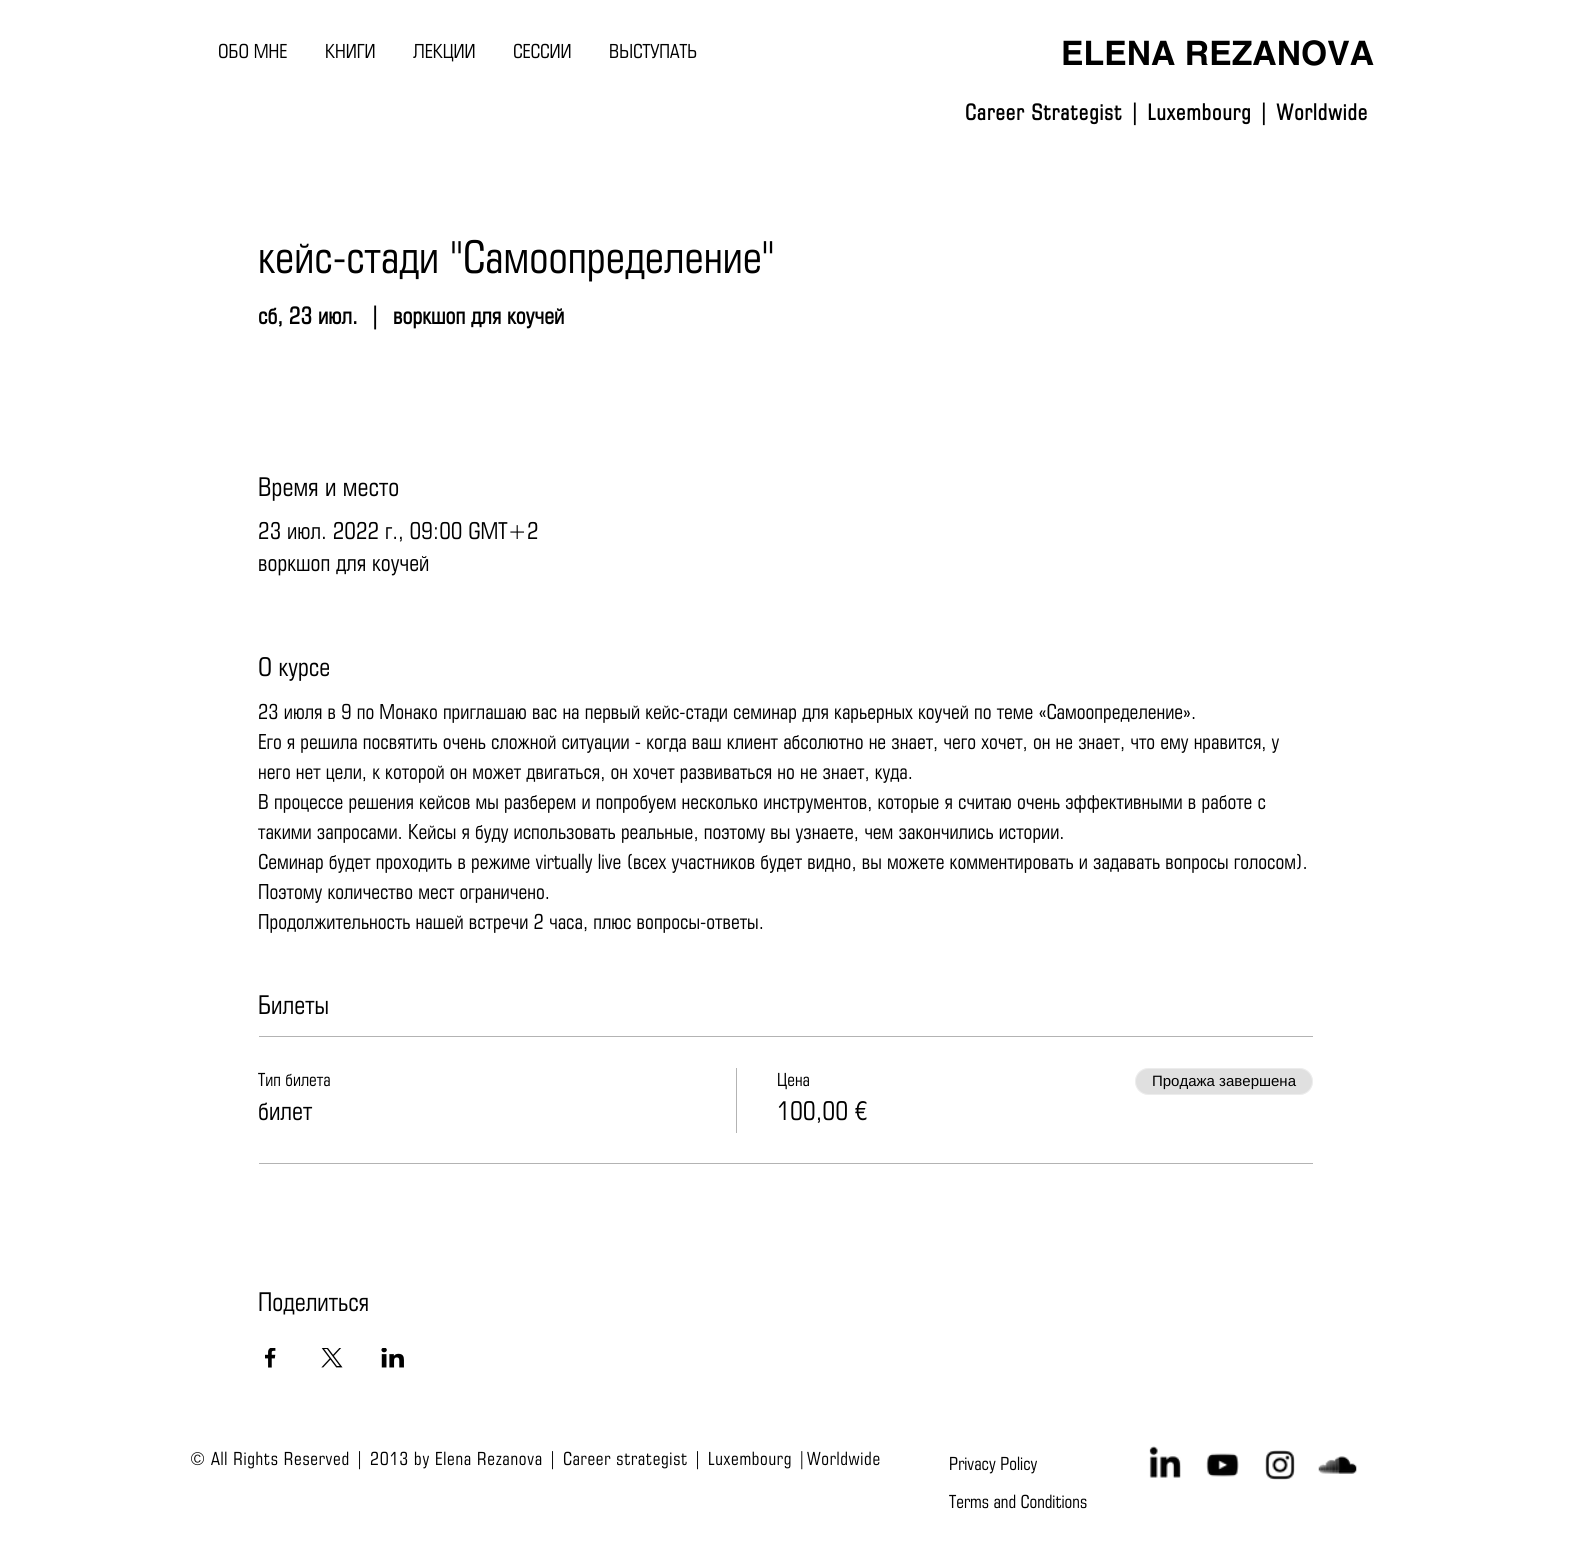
#include <cairo/cairo.h>
#include <math.h>
#include <stddef.h>

typedef struct { double x, y; const char *s; } line_t;
typedef struct { double x, y, w, h; unsigned color; } box_t;
static cairo_t *cr;

static void rgb(unsigned color)
{
	cairo_set_source_rgb(cr, (color >> 16) / 255.0, (color >> 8 & 255) / 255.0, (color & 255) / 255.0);
}

static void tracked(double x, double y, const char *s, double letter, double word)
{
	cairo_move_to(cr, x, y);
	while (*s) {
		char ch[5] = {0};
		int n = 0;
		do ch[n++] = *s++; while ((*s & 0xC0) == 0x80);
		cairo_show_text(cr, ch);
		cairo_rel_move_to(cr, letter + word * (*ch == ' '), 0);
	}
}

static void rrect(double x, double y, double w, double h, double r)
{
	cairo_new_sub_path(cr);
	cairo_arc(cr, x + w - r, y + h - r, r, 0, M_PI / 2);
	cairo_arc(cr, x + r, y + h - r, r, M_PI / 2, M_PI);
	cairo_arc(cr, x + r, y + r, r, M_PI, 1.5 * M_PI);
	cairo_arc(cr, x + w - r, y + r, r, 1.5 * M_PI, 2 * M_PI);
	cairo_close_path(cr);
}

static void image(const char *path, double x, double y, double w, double h)
{
	cairo_surface_t *image = cairo_image_surface_create_from_png(path);
	cairo_save(cr);
	cairo_set_source_surface(cr, image, x, y);
	cairo_rectangle(cr, x, y, w, h);
	cairo_fill(cr);
	cairo_restore(cr);
	cairo_surface_destroy(image);
}

int main(void) {
	cairo_surface_t *surface = cairo_image_surface_create(CAIRO_FORMAT_RGB24, 1569, 1551);
	cr = cairo_create(surface);
	cairo_font_options_t *options = cairo_font_options_create();
	cairo_font_options_set_hint_metrics(options, CAIRO_HINT_METRICS_OFF);
	cairo_font_options_set_hint_style(options, CAIRO_HINT_STYLE_NONE);
	cairo_set_font_options(cr, options);
	cairo_set_miter_limit(cr, 4);
	rgb(0xffffff);
	cairo_paint(cr);
	{
		static const box_t items[] = {
			{259, 1036, 1054, 1, 0xb3b3b3},
			{259, 1163, 1054, 1, 0xb3b3b3},
			{736, 1068, 1, 65, 0xb3b3b3},
		};
		for (size_t i = 0; i < sizeof items / sizeof *items; i++) {
			rgb(items[i].color);
			cairo_rectangle(cr, items[i].x, items[i].y, items[i].w, items[i].h);
			cairo_fill(cr);
		}
	}
	rgb(0xe0e0e0);
	rrect(1135, 1068, 178, 27, 13.5);
	cairo_fill(cr);
	rrect(1135.5, 1068.5, 177, 26, 13);
	cairo_set_source_rgba(cr, 1, 1, 1, 0.4);
	cairo_set_line_width(cr, 1);
	cairo_stroke(cr);
	image("img/1.png", 265, 1348, 11, 20);
	image("img/2.png", 321, 1348, 22, 20);
	image("img/3.png", 381, 1348, 23, 20);
	image("img/4.png", 1149, 1446, 32, 32);
	image("img/5.png", 1206, 1453, 33, 24);
	image("img/6.png", 1265, 1450, 30, 30);
	image("img/7.png", 1318, 1456, 39, 18);
	cairo_select_font_face(cr, "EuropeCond", CAIRO_FONT_SLANT_NORMAL, CAIRO_FONT_WEIGHT_NORMAL);
	cairo_set_font_size(cr, 18.75);
	rgb(0x000000);
	{
		static const line_t items[] = {
			{218, 58, "ОБО МНЕ"},
			{325, 58, "КНИГИ"},
			{413, 58, "ЛЕКЦИИ"},
			{513, 58, "СЕССИИ"},
			{609, 58, "ВЫСТУПАТЬ"},
		};
		for (size_t i = 0; i < sizeof items / sizeof *items; i++) {
			cairo_move_to(cr, items[i].x, items[i].y);
			cairo_show_text(cr, items[i].s);
		}
	}
	cairo_select_font_face(cr, "helvetica", CAIRO_FONT_SLANT_NORMAL, CAIRO_FONT_WEIGHT_BOLD);
	cairo_set_font_size(cr, 33.75);
	cairo_move_to(cr, 1061, 65);
	cairo_show_text(cr, "ELENA REZANOVA");
	cairo_select_font_face(cr, "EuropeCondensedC", CAIRO_FONT_SLANT_NORMAL, CAIRO_FONT_WEIGHT_BOLD);
	cairo_set_font_size(cr, 21.25);
	tracked(965, 120, "Career Strategist | Luxembourg | Worldwide", 1.05, 0);
	cairo_select_font_face(cr, "EuropeCond", CAIRO_FONT_SLANT_NORMAL, CAIRO_FONT_WEIGHT_NORMAL);
	cairo_set_font_size(cr, 43.75);
	cairo_move_to(cr, 258, 273);
	cairo_show_text(cr, "кейс-стади \"Самоопределение\"");
	cairo_select_font_face(cr, "EuropeCond", CAIRO_FONT_SLANT_NORMAL, CAIRO_FONT_WEIGHT_BOLD);
	cairo_set_font_size(cr, 22.5);
	{
		static const line_t items[] = {
			{258, 324, "сб, 23 июл."},
			{369, 324, "|"},
			{393, 324, "воркшоп для коучей"},
		};
		for (size_t i = 0; i < sizeof items / sizeof *items; i++) {
			cairo_move_to(cr, items[i].x, items[i].y);
			cairo_show_text(cr, items[i].s);
		}
	}
	cairo_select_font_face(cr, "EuropeCond", CAIRO_FONT_SLANT_NORMAL, CAIRO_FONT_WEIGHT_NORMAL);
	cairo_set_font_size(cr, 25);
	cairo_move_to(cr, 258, 496);
	cairo_show_text(cr, "Время и место");
	cairo_set_font_size(cr, 22.5);
	cairo_move_to(cr, 258, 539);
	cairo_show_text(cr, "23 июл. 2022 г., 09:00 GMT+2");
	cairo_move_to(cr, 258, 571);
	cairo_show_text(cr, "воркшоп для коучей");
	cairo_set_font_size(cr, 25);
	cairo_move_to(cr, 258, 676);
	cairo_show_text(cr, "О курсе");
	cairo_set_font_size(cr, 20);
	{
		static const line_t items[] = {
			{258, 719, "23 июля в 9 по Монако приглашаю вас на первый кейс-стади семинар для карьерных коучей по теме «Самоопределение»."},
			{258, 749, "Его я решила посвятить очень сложной ситуации - когда ваш клиент абсолютно не знает, чего хочет, он не знает, что ему нравится, у"},
			{258, 779, "него нет цели, к которой он может двигаться, он хочет развиваться но не знает, куда."},
			{258, 809, "В процессе решения кейсов мы разберем и попробуем несколько инструментов, которые я считаю очень эффективными в работе с"},
			{258, 839, "такими запросами. Кейсы я буду использовать реальные, поэтому вы узнаете, чем закончились истории."},
			{258, 869, "Семинар будет проходить в режиме virtually live (всех участников будет видно, вы можете комментировать и задавать вопросы голосом)."},
			{258, 899, "Поэтому количество мест ограничено."},
			{258, 929, "Продолжительность нашей встречи 2 часа, плюс вопросы-ответы."},
		};
		for (size_t i = 0; i < sizeof items / sizeof *items; i++) {
			cairo_move_to(cr, items[i].x, items[i].y);
			cairo_show_text(cr, items[i].s);
		}
	}
	cairo_set_font_size(cr, 25);
	cairo_move_to(cr, 258, 1014);
	cairo_show_text(cr, "Билеты");
	cairo_set_font_size(cr, 17.5);
	cairo_move_to(cr, 258, 1086);
	cairo_show_text(cr, "Тип билета");
	cairo_set_font_size(cr, 25);
	cairo_move_to(cr, 258, 1120);
	cairo_show_text(cr, "билет");
	cairo_set_font_size(cr, 17.5);
	cairo_move_to(cr, 777, 1086);
	cairo_show_text(cr, "Цена");
	cairo_set_font_size(cr, 25);
	cairo_move_to(cr, 777, 1120);
	cairo_show_text(cr, "100,00 €");
	cairo_select_font_face(cr, "Liberation Sans", CAIRO_FONT_SLANT_NORMAL, CAIRO_FONT_WEIGHT_NORMAL);
	cairo_set_font_size(cr, 15);
	cairo_move_to(cr, 1152, 1086);
	cairo_show_text(cr, "Продажа завершена");
	cairo_select_font_face(cr, "EuropeCond", CAIRO_FONT_SLANT_NORMAL, CAIRO_FONT_WEIGHT_NORMAL);
	cairo_set_font_size(cr, 25);
	cairo_move_to(cr, 258, 1311);
	cairo_show_text(cr, "Поделиться");
	cairo_select_font_face(cr, "EuropeCondensedC", CAIRO_FONT_SLANT_NORMAL, CAIRO_FONT_WEIGHT_NORMAL);
	cairo_set_font_size(cr, 17.5);
	tracked(190, 1465, "© All Rights Reserved | 2013 by Elena Rezanova | Career strategist | Luxembourg |Worldwide", 0.7, 0);
	cairo_move_to(cr, 949, 1470);
	cairo_show_text(cr, "Privacy Policy");
	cairo_move_to(cr, 949, 1508);
	cairo_show_text(cr, "Terms and Conditions");
	cairo_surface_write_to_png(surface, "page.png");
	cairo_font_options_destroy(options);
	cairo_destroy(cr);
	cairo_surface_destroy(surface);
	return 0;
}
